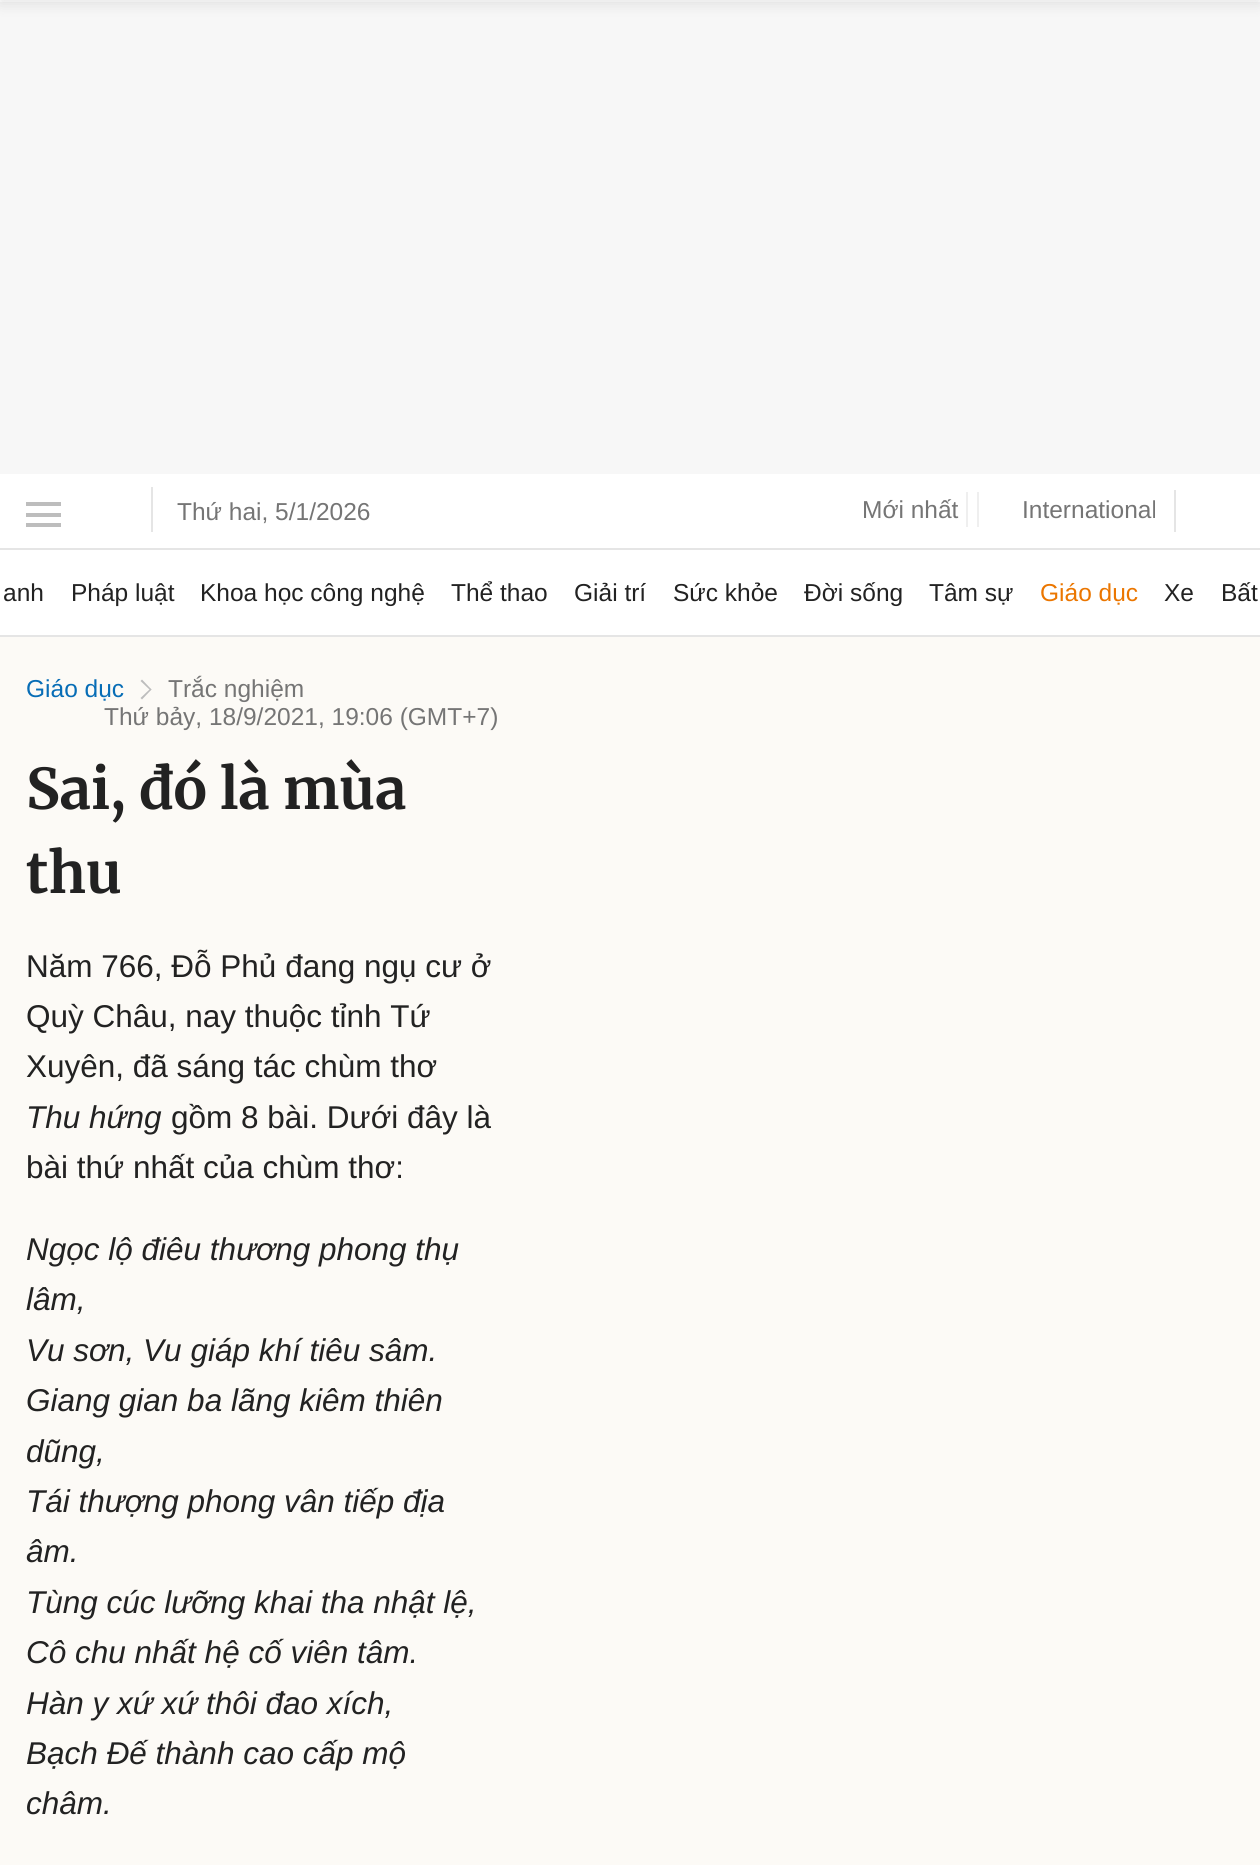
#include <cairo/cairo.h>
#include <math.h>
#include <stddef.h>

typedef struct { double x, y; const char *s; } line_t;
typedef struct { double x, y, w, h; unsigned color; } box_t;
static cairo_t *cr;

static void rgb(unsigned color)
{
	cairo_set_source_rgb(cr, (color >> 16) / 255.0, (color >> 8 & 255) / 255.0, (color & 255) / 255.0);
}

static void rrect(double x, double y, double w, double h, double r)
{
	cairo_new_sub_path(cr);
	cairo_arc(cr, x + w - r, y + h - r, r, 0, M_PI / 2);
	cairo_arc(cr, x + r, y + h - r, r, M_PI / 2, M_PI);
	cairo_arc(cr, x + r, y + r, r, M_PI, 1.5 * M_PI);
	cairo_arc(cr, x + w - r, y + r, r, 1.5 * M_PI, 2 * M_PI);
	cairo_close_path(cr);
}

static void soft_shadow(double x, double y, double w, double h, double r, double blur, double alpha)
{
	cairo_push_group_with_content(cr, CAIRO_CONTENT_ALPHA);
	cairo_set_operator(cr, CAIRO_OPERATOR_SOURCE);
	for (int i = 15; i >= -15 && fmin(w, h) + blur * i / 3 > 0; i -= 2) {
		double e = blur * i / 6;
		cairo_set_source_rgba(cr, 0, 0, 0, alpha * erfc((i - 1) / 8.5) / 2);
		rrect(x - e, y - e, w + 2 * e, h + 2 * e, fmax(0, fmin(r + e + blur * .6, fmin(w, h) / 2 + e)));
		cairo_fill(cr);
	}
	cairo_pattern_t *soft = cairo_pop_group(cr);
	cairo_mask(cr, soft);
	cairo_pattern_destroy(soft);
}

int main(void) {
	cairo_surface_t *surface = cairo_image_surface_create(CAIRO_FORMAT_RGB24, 1260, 1865);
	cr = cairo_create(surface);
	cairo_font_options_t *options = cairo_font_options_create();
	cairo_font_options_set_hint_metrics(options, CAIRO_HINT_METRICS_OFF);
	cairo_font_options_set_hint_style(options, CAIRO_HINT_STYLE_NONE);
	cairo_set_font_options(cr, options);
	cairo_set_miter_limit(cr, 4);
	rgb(0xffffff);
	cairo_paint(cr);
	{
		static const box_t items[] = {
			{0, 2, 1260, 472, 0xf7f7f7},
			{0, 548, 1260, 2, 0xe5e5e5},
			{26, 502, 35, 4, 0xbdbdbd},
			{26, 513, 35, 4, 0xbdbdbd},
			{26, 523, 35, 4, 0xbdbdbd},
			{151, 487, 2, 45, 0xe5e5e5},
			{977, 492, 2, 35, 0xefefef},
			{966, 492, 2, 35, 0xefefef},
			{1174, 490, 2, 42, 0xe5e5e5},
			{0, 635, 1260, 2, 0xe5e5e5},
			{0, 637, 1260, 1228, 0xfcfaf6},
		};
		for (size_t i = 0; i < sizeof items / sizeof *items; i++) {
			rgb(items[i].color);
			cairo_rectangle(cr, items[i].x, items[i].y, items[i].w, items[i].h);
			cairo_fill(cr);
		}
	}
	rgb(0x000000);
	soft_shadow(0, -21, 1260, 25, 0, 7, 0.1);
	rgb(0xbdbdbd);
	cairo_new_path(cr);
	cairo_move_to(cr, 142, 679.5);
	cairo_line_to(cr, 151.5, 689.5);
	cairo_line_to(cr, 150.5, 690.5);
	cairo_line_to(cr, 140.5, 681);
	cairo_close_path(cr);
	cairo_fill(cr);
	cairo_new_path(cr);
	cairo_move_to(cr, 150.5, 688.5);
	cairo_line_to(cr, 151.5, 689.5);
	cairo_line_to(cr, 142, 699.5);
	cairo_line_to(cr, 140.5, 698);
	cairo_close_path(cr);
	cairo_fill(cr);
	cairo_select_font_face(cr, "Liberation Sans", CAIRO_FONT_SLANT_NORMAL, CAIRO_FONT_WEIGHT_NORMAL);
	cairo_set_font_size(cr, 24.5);
	rgb(0x757575);
	{
		static const line_t items[] = {
			{177, 520, "Thứ hai, 5/1/2026"},
			{862, 518, "Mới nhất"},
			{1022, 518, "International"},
		};
		for (size_t i = 0; i < sizeof items / sizeof *items; i++) {
			cairo_move_to(cr, items[i].x, items[i].y);
			cairo_show_text(cr, items[i].s);
		}
	}
	rgb(0x222222);
	{
		static const line_t items[] = {
			{3, 601, "anh"},
			{71, 601, "Pháp luật"},
			{200, 601, "Khoa học công nghệ"},
			{451, 601, "Thể thao"},
			{574, 601, "Giải trí"},
			{673, 601, "Sức khỏe"},
			{804, 601, "Đời sống"},
			{929, 601, "Tâm sự"},
		};
		for (size_t i = 0; i < sizeof items / sizeof *items; i++) {
			cairo_move_to(cr, items[i].x, items[i].y);
			cairo_show_text(cr, items[i].s);
		}
	}
	rgb(0xeb7600);
	cairo_move_to(cr, 1040, 601);
	cairo_show_text(cr, "Giáo dục");
	rgb(0x222222);
	cairo_move_to(cr, 1164, 601);
	cairo_show_text(cr, "Xe");
	cairo_move_to(cr, 1221, 601);
	cairo_show_text(cr, "Bất");
	rgb(0x076db6);
	cairo_move_to(cr, 26, 697);
	cairo_show_text(cr, "Giáo dục");
	rgb(0x757575);
	cairo_move_to(cr, 168, 697);
	cairo_show_text(cr, "Trắc nghiệm");
	cairo_move_to(cr, 104, 725);
	cairo_show_text(cr, "Thứ bảy, 18/9/2021, 19:06 (GMT+7)");
	cairo_select_font_face(cr, "Merriweather", CAIRO_FONT_SLANT_NORMAL, CAIRO_FONT_WEIGHT_BOLD);
	cairo_set_font_size(cr, 56);
	rgb(0x222222);
	cairo_move_to(cr, 26, 809);
	cairo_show_text(cr, "Sai, đó là mùa");
	cairo_move_to(cr, 26, 893);
	cairo_show_text(cr, "thu");
	cairo_select_font_face(cr, "Liberation Sans", CAIRO_FONT_SLANT_NORMAL, CAIRO_FONT_WEIGHT_NORMAL);
	cairo_set_font_size(cr, 31.5);
	{
		static const line_t items[] = {
			{26, 977, "Năm 766, Đỗ Phủ đang ngụ cư ở"},
			{26, 1027, "Quỳ Châu, nay thuộc tỉnh Tứ"},
			{26, 1077, "Xuyên, đã sáng tác chùm thơ"},
		};
		for (size_t i = 0; i < sizeof items / sizeof *items; i++) {
			cairo_move_to(cr, items[i].x, items[i].y);
			cairo_show_text(cr, items[i].s);
		}
	}
	cairo_select_font_face(cr, "Liberation Sans", CAIRO_FONT_SLANT_ITALIC, CAIRO_FONT_WEIGHT_NORMAL);
	cairo_move_to(cr, 26, 1128);
	cairo_show_text(cr, "Thu hứng");
	cairo_select_font_face(cr, "Liberation Sans", CAIRO_FONT_SLANT_NORMAL, CAIRO_FONT_WEIGHT_NORMAL);
	cairo_move_to(cr, 171, 1128);
	cairo_show_text(cr, "gồm 8 bài. Dưới đây là");
	cairo_move_to(cr, 26, 1178);
	cairo_show_text(cr, "bài thứ nhất của chùm thơ:");
	cairo_select_font_face(cr, "Liberation Sans", CAIRO_FONT_SLANT_ITALIC, CAIRO_FONT_WEIGHT_NORMAL);
	{
		static const line_t items[] = {
			{26, 1260, "Ngọc lộ điêu thương phong thụ"},
			{26, 1310, "lâm,"},
			{26, 1361, "Vu sơn, Vu giáp khí tiêu sâm."},
			{26, 1411, "Giang gian ba lãng kiêm thiên"},
			{26, 1462, "dũng,"},
			{26, 1512, "Tái thượng phong vân tiếp địa"},
			{26, 1562, "âm."},
			{26, 1613, "Tùng cúc lưỡng khai tha nhật lệ,"},
			{26, 1663, "Cô chu nhất hệ cố viên tâm."},
			{26, 1714, "Hàn y xứ xứ thôi đao xích,"},
			{26, 1764, "Bạch Đế thành cao cấp mộ"},
			{26, 1814, "châm."},
		};
		for (size_t i = 0; i < sizeof items / sizeof *items; i++) {
			cairo_move_to(cr, items[i].x, items[i].y);
			cairo_show_text(cr, items[i].s);
		}
	}
	cairo_surface_write_to_png(surface, "page.png");
	cairo_font_options_destroy(options);
	cairo_destroy(cr);
	cairo_surface_destroy(surface);
	return 0;
}
